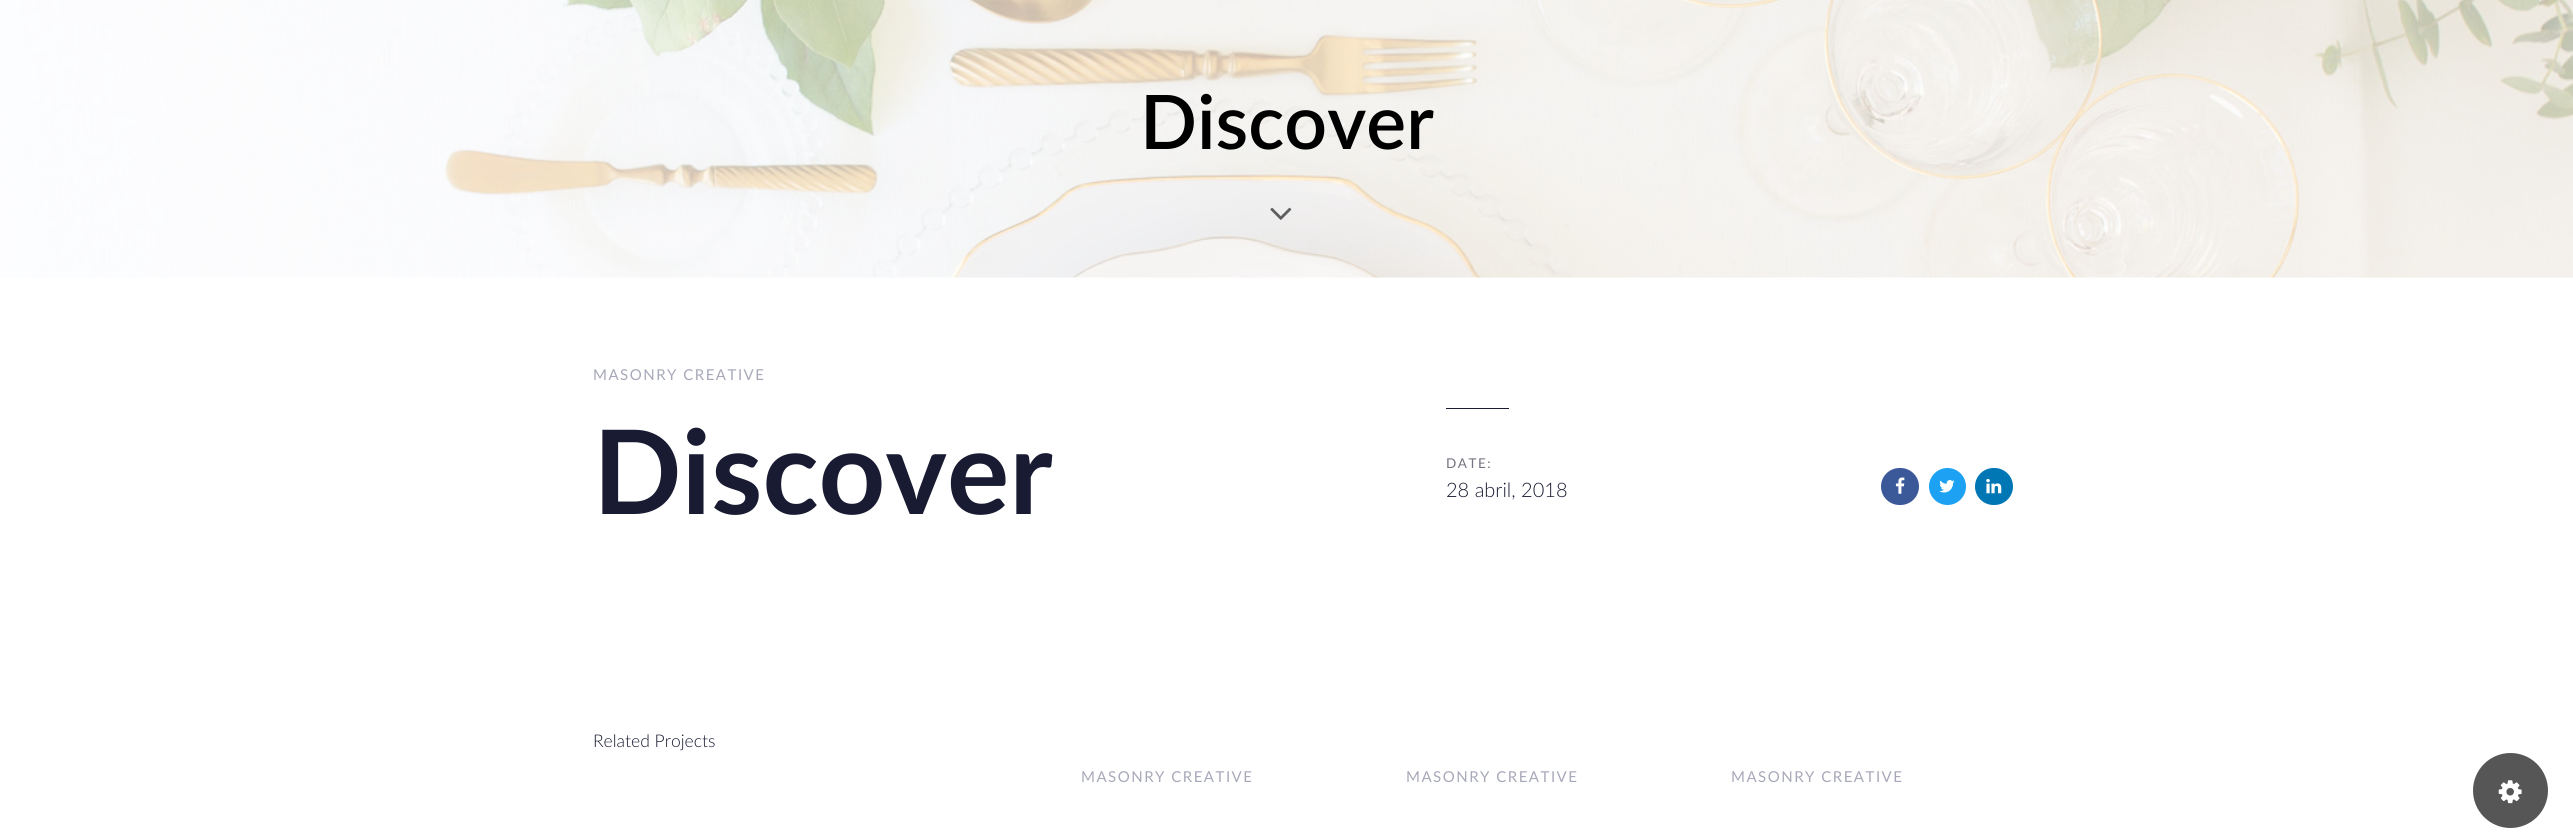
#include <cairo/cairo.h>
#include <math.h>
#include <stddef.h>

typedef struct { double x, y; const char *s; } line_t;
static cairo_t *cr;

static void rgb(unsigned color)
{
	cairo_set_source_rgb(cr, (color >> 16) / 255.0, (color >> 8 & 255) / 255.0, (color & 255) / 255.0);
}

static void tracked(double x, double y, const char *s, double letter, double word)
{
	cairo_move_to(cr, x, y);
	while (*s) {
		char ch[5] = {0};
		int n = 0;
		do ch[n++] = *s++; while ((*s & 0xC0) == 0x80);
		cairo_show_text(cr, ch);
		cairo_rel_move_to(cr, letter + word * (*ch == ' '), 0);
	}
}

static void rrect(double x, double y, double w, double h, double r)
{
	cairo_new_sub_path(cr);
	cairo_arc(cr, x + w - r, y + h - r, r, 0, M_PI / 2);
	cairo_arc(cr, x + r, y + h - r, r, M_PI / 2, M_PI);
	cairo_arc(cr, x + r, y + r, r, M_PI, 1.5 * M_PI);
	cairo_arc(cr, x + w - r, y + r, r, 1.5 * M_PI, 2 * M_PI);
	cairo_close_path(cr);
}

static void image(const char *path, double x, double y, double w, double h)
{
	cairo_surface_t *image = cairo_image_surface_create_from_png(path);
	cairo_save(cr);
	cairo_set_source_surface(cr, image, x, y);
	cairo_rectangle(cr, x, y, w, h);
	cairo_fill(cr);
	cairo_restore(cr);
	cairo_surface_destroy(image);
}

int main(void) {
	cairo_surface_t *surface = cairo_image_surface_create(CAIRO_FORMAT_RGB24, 2573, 836);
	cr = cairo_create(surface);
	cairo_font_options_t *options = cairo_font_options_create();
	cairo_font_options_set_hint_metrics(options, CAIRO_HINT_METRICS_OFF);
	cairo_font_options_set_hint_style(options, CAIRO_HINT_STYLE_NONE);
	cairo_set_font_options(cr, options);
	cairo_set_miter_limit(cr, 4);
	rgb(0xffffff);
	cairo_paint(cr);
	image("img/1.png", 0, 0, 2573, 278);
	image("img/2.png", 1270, 207, 22, 13);
	rgb(0x181b31);
	cairo_rectangle(cr, 1446, 408, 63, 1);
	cairo_fill(cr);
	rgb(0x3b5998);
	rrect(1881, 468, 38, 37, 18.5);
	cairo_fill(cr);
	image("img/3.png", 1895, 477, 10, 17);
	rgb(0x1da1f2);
	cairo_arc(cr, 1947.5, 486.5, 18.5, 0, 2 * M_PI);
	cairo_fill(cr);
	image("img/4.png", 1939, 480, 16, 13);
	rgb(0x0077b5);
	rrect(1975, 468, 38, 37, 18.5);
	cairo_fill(cr);
	image("img/5.png", 1986, 479, 16, 15);
	rgb(0x565656);
	cairo_arc(cr, 2510.5, 790.5, 37.5, 0, 2 * M_PI);
	cairo_fill(cr);
	image("img/6.png", 2498, 780, 24, 24);
	cairo_select_font_face(cr, "Lato SemiBold", CAIRO_FONT_SLANT_NORMAL, CAIRO_FONT_WEIGHT_NORMAL);
	cairo_set_font_size(cr, 75);
	rgb(0x000000);
	cairo_move_to(cr, 1140, 149);
	cairo_show_text(cr, "Discover");
	cairo_select_font_face(cr, "Lato", CAIRO_FONT_SLANT_NORMAL, CAIRO_FONT_WEIGHT_NORMAL);
	cairo_set_font_size(cr, 15);
	rgb(0xa7a9b8);
	tracked(593, 380, "MASONRY CREATIVE", 1.5, 0);
	cairo_select_font_face(cr, "Lato", CAIRO_FONT_SLANT_NORMAL, CAIRO_FONT_WEIGHT_BOLD);
	cairo_set_font_size(cr, 116.5);
	rgb(0x181b31);
	cairo_move_to(cr, 593, 514);
	cairo_show_text(cr, "Discover");
	cairo_select_font_face(cr, "Lato", CAIRO_FONT_SLANT_NORMAL, CAIRO_FONT_WEIGHT_NORMAL);
	cairo_set_font_size(cr, 13.5);
	rgb(0x73747f);
	tracked(1446, 468, "DATE:", 1.5, 0);
	cairo_select_font_face(cr, "Lato Light", CAIRO_FONT_SLANT_NORMAL, CAIRO_FONT_WEIGHT_NORMAL);
	cairo_set_font_size(cr, 20);
	rgb(0x181b31);
	cairo_move_to(cr, 1446, 497);
	cairo_show_text(cr, "28 abril, 2018");
	cairo_set_font_size(cr, 17.5);
	cairo_move_to(cr, 593, 747);
	cairo_show_text(cr, "Related Projects");
	cairo_select_font_face(cr, "Lato", CAIRO_FONT_SLANT_NORMAL, CAIRO_FONT_WEIGHT_NORMAL);
	cairo_set_font_size(cr, 15);
	rgb(0xa7a9b8);
	{
		static const line_t items[] = {
			{1081, 782, "MASONRY CREATIVE"},
			{1406, 782, "MASONRY CREATIVE"},
			{1731, 782, "MASONRY CREATIVE"},
		};
		for (size_t i = 0; i < sizeof items / sizeof *items; i++) {
			tracked(items[i].x, items[i].y, items[i].s, 1.5, 0);
		}
	}
	cairo_surface_write_to_png(surface, "page.png");
	cairo_font_options_destroy(options);
	cairo_destroy(cr);
	cairo_surface_destroy(surface);
	return 0;
}
